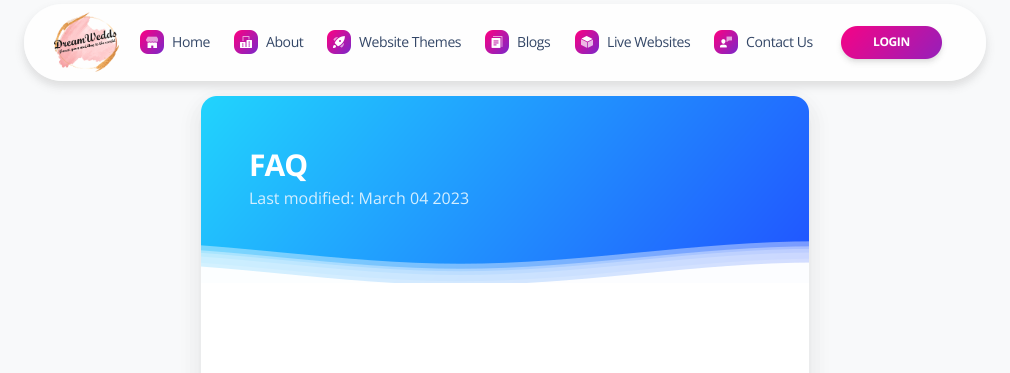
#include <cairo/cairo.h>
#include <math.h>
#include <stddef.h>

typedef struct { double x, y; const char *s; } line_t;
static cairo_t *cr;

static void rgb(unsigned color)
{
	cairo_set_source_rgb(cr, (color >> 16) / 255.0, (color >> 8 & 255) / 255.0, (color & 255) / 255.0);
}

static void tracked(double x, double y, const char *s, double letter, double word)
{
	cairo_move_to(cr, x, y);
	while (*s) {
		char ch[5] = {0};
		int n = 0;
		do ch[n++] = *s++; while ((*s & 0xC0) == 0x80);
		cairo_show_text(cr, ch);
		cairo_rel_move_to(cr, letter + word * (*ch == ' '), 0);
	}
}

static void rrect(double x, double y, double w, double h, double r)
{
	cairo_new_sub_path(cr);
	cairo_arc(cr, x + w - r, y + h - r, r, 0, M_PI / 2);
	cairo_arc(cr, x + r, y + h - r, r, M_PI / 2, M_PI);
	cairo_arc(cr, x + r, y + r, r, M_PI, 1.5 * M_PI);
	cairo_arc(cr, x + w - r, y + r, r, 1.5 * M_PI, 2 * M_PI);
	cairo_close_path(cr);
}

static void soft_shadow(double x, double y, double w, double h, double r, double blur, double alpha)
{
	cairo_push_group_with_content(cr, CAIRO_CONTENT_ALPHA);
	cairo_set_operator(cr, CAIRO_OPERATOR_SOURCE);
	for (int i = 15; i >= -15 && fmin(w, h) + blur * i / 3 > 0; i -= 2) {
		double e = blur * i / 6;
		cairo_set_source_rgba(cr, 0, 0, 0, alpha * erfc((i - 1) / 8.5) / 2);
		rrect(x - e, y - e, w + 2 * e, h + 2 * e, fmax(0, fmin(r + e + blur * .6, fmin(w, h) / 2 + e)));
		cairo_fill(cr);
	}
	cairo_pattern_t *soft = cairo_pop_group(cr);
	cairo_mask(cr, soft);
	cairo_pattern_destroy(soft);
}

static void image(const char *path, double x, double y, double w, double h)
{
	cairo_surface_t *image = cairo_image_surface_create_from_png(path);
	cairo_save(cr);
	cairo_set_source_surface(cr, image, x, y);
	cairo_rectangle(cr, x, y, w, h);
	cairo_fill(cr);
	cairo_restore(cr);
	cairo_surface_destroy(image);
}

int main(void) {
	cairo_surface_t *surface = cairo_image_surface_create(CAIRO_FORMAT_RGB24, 1010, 373);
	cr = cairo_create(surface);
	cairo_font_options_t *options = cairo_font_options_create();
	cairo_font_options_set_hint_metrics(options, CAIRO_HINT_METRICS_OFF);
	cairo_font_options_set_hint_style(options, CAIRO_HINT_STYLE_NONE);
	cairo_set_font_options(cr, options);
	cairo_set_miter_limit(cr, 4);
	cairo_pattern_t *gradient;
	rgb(0xf8f9fa);
	cairo_paint(cr);
	rgb(0x141414);
	soft_shadow(205, 108, 600, 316, 12, 13, 0.15);
	rgb(0xffffff);
	rrect(201, 96, 608, 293, 16);
	cairo_fill(cr);
	gradient = cairo_pattern_create_linear(729, 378, 281, 1.2);
	cairo_pattern_add_color_stop_rgba(gradient, 0, 0.129, 0.322, 1, 1);
	cairo_pattern_add_color_stop_rgba(gradient, 1, 0.129, 0.831, 0.992, 1);
	cairo_set_source(cr, gradient);
	cairo_pattern_destroy(gradient);
	cairo_new_path(cr);
	cairo_move_to(cr, 217, 96);
	cairo_line_to(cr, 793, 96);
	cairo_curve_to(cr, 802, 96, 809, 103, 809, 112);
	cairo_line_to(cr, 809, 283);
	cairo_line_to(cr, 201, 283);
	cairo_line_to(cr, 201, 112);
	cairo_curve_to(cr, 201, 103, 208, 96, 217, 96);
	cairo_close_path(cr);
	cairo_fill(cr);
	cairo_save(cr);
	cairo_set_fill_rule(cr, CAIRO_FILL_RULE_EVEN_ODD);
	cairo_new_path(cr);
	cairo_move_to(cr, 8, 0);
	cairo_line_to(cr, 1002, 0);
	cairo_line_to(cr, 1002, 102);
	cairo_line_to(cr, 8, 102);
	cairo_close_path(cr);
	cairo_move_to(cr, 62.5, 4);
	cairo_line_to(cr, 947.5, 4);
	cairo_curve_to(cr, 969, 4, 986, 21, 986, 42.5);
	cairo_curve_to(cr, 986, 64, 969, 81, 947.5, 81);
	cairo_line_to(cr, 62.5, 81);
	cairo_curve_to(cr, 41, 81, 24, 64, 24, 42.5);
	cairo_curve_to(cr, 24, 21, 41, 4, 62.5, 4);
	cairo_close_path(cr);
	cairo_clip(cr);
	rgb(0x000000);
	soft_shadow(24, 9, 962, 77, 38.5, 5, 0.12);
	cairo_restore(cr);
	cairo_set_source_rgba(cr, 1, 1, 1, 0.8);
	rrect(24, 4, 962, 77, 38.5);
	cairo_fill(cr);
	image("img/1.png", 54, 12, 65, 60);
	gradient = cairo_pattern_create_linear(165, 53, 139, 31);
	cairo_pattern_add_color_stop_rgba(gradient, 0, 0.475, 0.157, 0.792, 1);
	cairo_pattern_add_color_stop_rgba(gradient, 1, 1, 0, 0.502, 1);
	cairo_set_source(cr, gradient);
	cairo_pattern_destroy(gradient);
	rrect(140, 30, 24, 24, 8);
	cairo_fill(cr);
	image("img/2.png", 146, 36, 12, 12);
	gradient = cairo_pattern_create_linear(259, 53, 233, 31);
	cairo_pattern_add_color_stop_rgba(gradient, 0, 0.475, 0.157, 0.792, 1);
	cairo_pattern_add_color_stop_rgba(gradient, 1, 1, 0, 0.502, 1);
	cairo_set_source(cr, gradient);
	cairo_pattern_destroy(gradient);
	rrect(234, 30, 24, 24, 8);
	cairo_fill(cr);
	image("img/3.png", 240, 36, 12, 12);
	gradient = cairo_pattern_create_linear(352, 53, 326, 31);
	cairo_pattern_add_color_stop_rgba(gradient, 0, 0.475, 0.157, 0.792, 1);
	cairo_pattern_add_color_stop_rgba(gradient, 1, 1, 0, 0.502, 1);
	cairo_set_source(cr, gradient);
	cairo_pattern_destroy(gradient);
	rrect(327, 30, 24, 24, 8);
	cairo_fill(cr);
	image("img/4.png", 333, 36, 12, 12);
	gradient = cairo_pattern_create_linear(510, 53, 484, 31);
	cairo_pattern_add_color_stop_rgba(gradient, 0, 0.475, 0.157, 0.792, 1);
	cairo_pattern_add_color_stop_rgba(gradient, 1, 1, 0, 0.502, 1);
	cairo_set_source(cr, gradient);
	cairo_pattern_destroy(gradient);
	rrect(485, 30, 24, 24, 8);
	cairo_fill(cr);
	image("img/5.png", 491, 36, 12, 12);
	gradient = cairo_pattern_create_linear(600, 53, 574, 31);
	cairo_pattern_add_color_stop_rgba(gradient, 0, 0.475, 0.157, 0.792, 1);
	cairo_pattern_add_color_stop_rgba(gradient, 1, 1, 0, 0.502, 1);
	cairo_set_source(cr, gradient);
	cairo_pattern_destroy(gradient);
	rrect(575, 30, 24, 24, 8);
	cairo_fill(cr);
	image("img/6.png", 581, 36, 12, 12);
	gradient = cairo_pattern_create_linear(739, 53, 713, 31);
	cairo_pattern_add_color_stop_rgba(gradient, 0, 0.475, 0.157, 0.792, 1);
	cairo_pattern_add_color_stop_rgba(gradient, 1, 1, 0, 0.502, 1);
	cairo_set_source(cr, gradient);
	cairo_pattern_destroy(gradient);
	rrect(714, 30, 24, 24, 8);
	cairo_fill(cr);
	image("img/7.png", 720, 36, 12, 12);
	rgb(0x000000);
	soft_shadow(842, 29, 99, 31, 15.5, 2, 0.07);
	soft_shadow(842, 31, 99, 31, 15.5, 3.5, 0.11);
	gradient = cairo_pattern_create_linear(957, 87, 852, -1.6);
	cairo_pattern_add_color_stop_rgba(gradient, 0, 0.475, 0.157, 0.792, 1);
	cairo_pattern_add_color_stop_rgba(gradient, 1, 1, 0, 0.502, 1);
	cairo_set_source(cr, gradient);
	cairo_pattern_destroy(gradient);
	rrect(841, 26, 101, 33, 16.5);
	cairo_fill(cr);
	image("img/8.png", 201, 241, 608, 42);
	cairo_select_font_face(cr, "Open Sans", CAIRO_FONT_SLANT_NORMAL, CAIRO_FONT_WEIGHT_NORMAL);
	cairo_set_font_size(cr, 14);
	rgb(0x344767);
	{
		static const line_t items[] = {
			{172, 47, "Home"},
			{266, 47, "About"},
			{359, 47, "Website Themes"},
			{517, 47, "Blogs"},
			{607, 47, "Live Websites"},
			{746, 47, "Contact Us"},
		};
		for (size_t i = 0; i < sizeof items / sizeof *items; i++) {
			tracked(items[i].x, items[i].y, items[i].s, -0.4, 0);
		}
	}
	cairo_select_font_face(cr, "Open Sans", CAIRO_FONT_SLANT_NORMAL, CAIRO_FONT_WEIGHT_BOLD);
	cairo_set_font_size(cr, 12);
	rgb(0xffffff);
	tracked(873, 46, "LOGIN", -0.4, 0);
	cairo_set_font_size(cr, 30);
	tracked(249, 176, "FAQ", -1, 0);
	cairo_select_font_face(cr, "Open Sans", CAIRO_FONT_SLANT_NORMAL, CAIRO_FONT_WEIGHT_NORMAL);
	cairo_set_font_size(cr, 16);
	rgb(0xd3eeff);
	cairo_move_to(cr, 249, 204);
	cairo_show_text(cr, "Last modified: March 04 2023");
	cairo_surface_write_to_png(surface, "page.png");
	cairo_font_options_destroy(options);
	cairo_destroy(cr);
	cairo_surface_destroy(surface);
	return 0;
}
